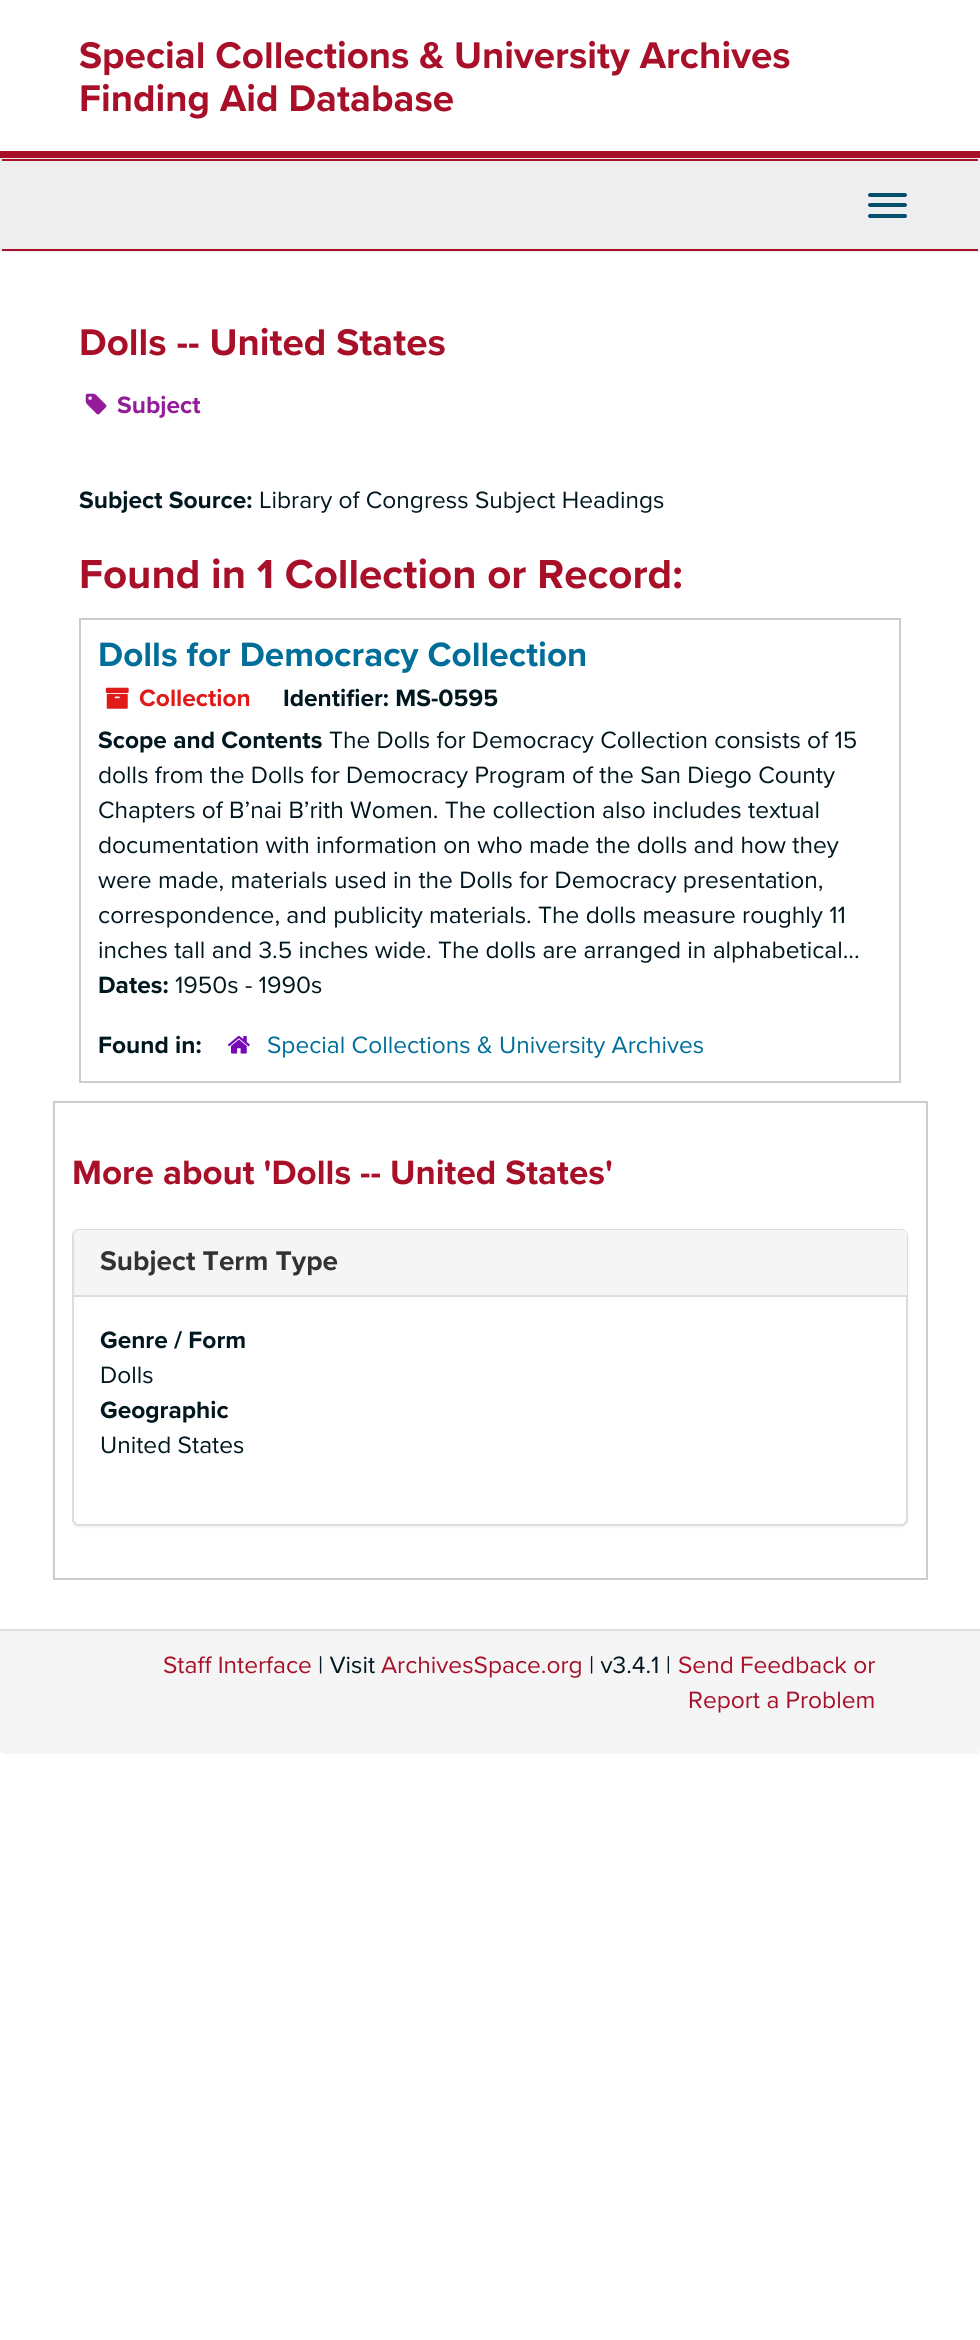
#include <cairo/cairo.h>
#include <math.h>
#include <stddef.h>

typedef struct { double x, y; const char *s; } line_t;
typedef struct { double x, y, w, h; unsigned color; } box_t;
static cairo_t *cr;

static void rgb(unsigned color)
{
	cairo_set_source_rgb(cr, (color >> 16) / 255.0, (color >> 8 & 255) / 255.0, (color & 255) / 255.0);
}

static void rrect(double x, double y, double w, double h, double r)
{
	cairo_new_sub_path(cr);
	cairo_arc(cr, x + w - r, y + h - r, r, 0, M_PI / 2);
	cairo_arc(cr, x + r, y + h - r, r, M_PI / 2, M_PI);
	cairo_arc(cr, x + r, y + r, r, M_PI, 1.5 * M_PI);
	cairo_arc(cr, x + w - r, y + r, r, 1.5 * M_PI, 2 * M_PI);
	cairo_close_path(cr);
}

static void soft_shadow(double x, double y, double w, double h, double r, double blur, double alpha)
{
	cairo_push_group_with_content(cr, CAIRO_CONTENT_ALPHA);
	cairo_set_operator(cr, CAIRO_OPERATOR_SOURCE);
	for (int i = 15; i >= -15 && fmin(w, h) + blur * i / 3 > 0; i -= 2) {
		double e = blur * i / 6;
		cairo_set_source_rgba(cr, 0, 0, 0, alpha * erfc((i - 1) / 8.5) / 2);
		rrect(x - e, y - e, w + 2 * e, h + 2 * e, fmax(0, fmin(r + e + blur * .6, fmin(w, h) / 2 + e)));
		cairo_fill(cr);
	}
	cairo_pattern_t *soft = cairo_pop_group(cr);
	cairo_mask(cr, soft);
	cairo_pattern_destroy(soft);
}

static void image(const char *path, double x, double y, double w, double h)
{
	cairo_surface_t *image = cairo_image_surface_create_from_png(path);
	cairo_save(cr);
	cairo_set_source_surface(cr, image, x, y);
	cairo_rectangle(cr, x, y, w, h);
	cairo_fill(cr);
	cairo_restore(cr);
	cairo_surface_destroy(image);
}

int main(void) {
	cairo_surface_t *surface = cairo_image_surface_create(CAIRO_FORMAT_RGB24, 980, 2340);
	cr = cairo_create(surface);
	cairo_font_options_t *options = cairo_font_options_create();
	cairo_font_options_set_hint_metrics(options, CAIRO_HINT_METRICS_OFF);
	cairo_font_options_set_hint_style(options, CAIRO_HINT_STYLE_NONE);
	cairo_set_font_options(cr, options);
	cairo_set_miter_limit(cr, 4);
	rgb(0xffffff);
	cairo_paint(cr);
	{
		static const box_t items[] = {
			{0, 151, 980, 7, 0xa81029},
			{0, 158, 980, 94, 0xeeeeee},
			{2, 159, 976, 2, 0xa81029},
			{2, 249, 976, 2, 0xa81029},
		};
		for (size_t i = 0; i < sizeof items / sizeof *items; i++) {
			rgb(items[i].color);
			cairo_rectangle(cr, items[i].x, items[i].y, items[i].w, items[i].h);
			cairo_fill(cr);
		}
	}
	rgb(0x004f6f);
	rrect(868, 193, 39, 4, 2);
	cairo_fill(cr);
	rrect(868, 203, 39, 4, 2);
	cairo_fill(cr);
	rrect(868, 214, 39, 4, 2);
	cairo_fill(cr);
	image("img/1.png", 85, 393, 22, 22);
	cairo_rectangle(cr, 80, 619, 820, 463);
	rgb(0xcccccc);
	cairo_stroke(cr);
	image("img/2.png", 105, 687, 24, 22);
	image("img/3.png", 227, 1036, 23, 18);
	cairo_rectangle(cr, 54, 1102, 873, 477);
	cairo_stroke(cr);
	rgb(0x000000);
	soft_shadow(72, 1230, 836, 298, 7, 1, 0.05);
	rgb(0xffffff);
	rrect(73, 1230, 834, 295, 6);
	cairo_fill_preserve(cr);
	rgb(0xdddddd);
	cairo_stroke(cr);
	rgb(0xf5f5f5);
	cairo_new_path(cr);
	cairo_move_to(cr, 79, 1230);
	cairo_line_to(cr, 902, 1230);
	cairo_curve_to(cr, 905, 1230, 907, 1232, 907, 1235);
	cairo_line_to(cr, 907, 1295);
	cairo_line_to(cr, 74, 1295);
	cairo_line_to(cr, 74, 1235);
	cairo_curve_to(cr, 74, 1232, 76, 1230, 79, 1230);
	cairo_close_path(cr);
	cairo_fill(cr);
	rgb(0xdddddd);
	cairo_rectangle(cr, 74, 1295, 833, 2);
	cairo_fill(cr);
	rgb(0xf5f5f5);
	cairo_new_path(cr);
	cairo_move_to(cr, 0, 1629);
	cairo_line_to(cr, 980, 1629);
	cairo_line_to(cr, 980, 1749);
	cairo_curve_to(cr, 980, 1752, 978, 1754, 975, 1754);
	cairo_line_to(cr, 5, 1754);
	cairo_curve_to(cr, 2, 1754, 0, 1752, 0, 1749);
	cairo_close_path(cr);
	cairo_fill(cr);
	rgb(0xdddddd);
	cairo_rectangle(cr, 0, 1629, 980, 2);
	cairo_fill(cr);
	cairo_select_font_face(cr, "Proxima Nova", CAIRO_FONT_SLANT_NORMAL, CAIRO_FONT_WEIGHT_BOLD);
	cairo_set_font_size(cr, 38.5);
	rgb(0xa81029);
	{
		static const line_t items[] = {
			{79, 68, "Special Collections & University Archives"},
			{79, 111, "Finding Aid Database"},
			{79, 355, "Dolls -- United States"},
		};
		for (size_t i = 0; i < sizeof items / sizeof *items; i++) {
			cairo_move_to(cr, items[i].x, items[i].y);
			cairo_show_text(cr, items[i].s);
		}
	}
	cairo_set_font_size(cr, 24.5);
	rgb(0x941c9a);
	cairo_move_to(cr, 117, 413);
	cairo_show_text(cr, "Subject");
	rgb(0x00171f);
	cairo_move_to(cr, 79, 508);
	cairo_show_text(cr, "Subject Source:");
	cairo_select_font_face(cr, "Proxima Nova", CAIRO_FONT_SLANT_NORMAL, CAIRO_FONT_WEIGHT_NORMAL);
	cairo_move_to(cr, 259, 508);
	cairo_show_text(cr, "Library of Congress Subject Headings");
	cairo_select_font_face(cr, "Proxima Nova", CAIRO_FONT_SLANT_NORMAL, CAIRO_FONT_WEIGHT_BOLD);
	cairo_set_font_size(cr, 42);
	rgb(0xa81029);
	cairo_move_to(cr, 79, 588);
	cairo_show_text(cr, "Found in 1 Collection or Record:");
	cairo_set_font_size(cr, 35);
	rgb(0x006e99);
	cairo_move_to(cr, 98, 666);
	cairo_show_text(cr, "Dolls for Democracy Collection");
	cairo_set_font_size(cr, 24.5);
	rgb(0xe01919);
	cairo_move_to(cr, 139, 706);
	cairo_show_text(cr, "Collection");
	rgb(0x00171f);
	cairo_move_to(cr, 283, 706);
	cairo_show_text(cr, "Identifier: MS-0595");
	cairo_move_to(cr, 98, 748);
	cairo_show_text(cr, "Scope and Contents");
	cairo_select_font_face(cr, "Proxima Nova", CAIRO_FONT_SLANT_NORMAL, CAIRO_FONT_WEIGHT_NORMAL);
	{
		static const line_t items[] = {
			{329, 748, "The Dolls for Democracy Collection consists of 15"},
			{98, 783, "dolls from the Dolls for Democracy Program of the San Diego County"},
			{98, 818, "Chapters of B’nai B’rith Women. The collection also includes textual"},
			{98, 853, "documentation with information on who made the dolls and how they"},
			{98, 888, "were made, materials used in the Dolls for Democracy presentation,"},
			{98, 923, "correspondence, and publicity materials. The dolls measure roughly 11"},
			{98, 958, "inches tall and 3.5 inches wide. The dolls are arranged in alphabetical..."},
		};
		for (size_t i = 0; i < sizeof items / sizeof *items; i++) {
			cairo_move_to(cr, items[i].x, items[i].y);
			cairo_show_text(cr, items[i].s);
		}
	}
	cairo_select_font_face(cr, "Proxima Nova", CAIRO_FONT_SLANT_NORMAL, CAIRO_FONT_WEIGHT_BOLD);
	cairo_move_to(cr, 98, 993);
	cairo_show_text(cr, "Dates:");
	cairo_select_font_face(cr, "Proxima Nova", CAIRO_FONT_SLANT_NORMAL, CAIRO_FONT_WEIGHT_NORMAL);
	cairo_move_to(cr, 175, 993);
	cairo_show_text(cr, "1950s - 1990s");
	cairo_select_font_face(cr, "Proxima Nova", CAIRO_FONT_SLANT_NORMAL, CAIRO_FONT_WEIGHT_BOLD);
	cairo_move_to(cr, 98, 1053);
	cairo_show_text(cr, "Found in:");
	cairo_select_font_face(cr, "Proxima Nova", CAIRO_FONT_SLANT_NORMAL, CAIRO_FONT_WEIGHT_NORMAL);
	rgb(0x006e99);
	cairo_move_to(cr, 267, 1053);
	cairo_show_text(cr, "Special Collections & University Archives");
	cairo_select_font_face(cr, "Proxima Nova", CAIRO_FONT_SLANT_NORMAL, CAIRO_FONT_WEIGHT_BOLD);
	cairo_set_font_size(cr, 35);
	rgb(0xa81029);
	cairo_move_to(cr, 72, 1184);
	cairo_show_text(cr, "More about 'Dolls -- United States'");
	cairo_set_font_size(cr, 28);
	rgb(0x333333);
	cairo_move_to(cr, 100, 1270);
	cairo_show_text(cr, "Subject Term Type");
	cairo_set_font_size(cr, 24.5);
	rgb(0x00171f);
	cairo_move_to(cr, 100, 1348);
	cairo_show_text(cr, "Genre / Form");
	cairo_select_font_face(cr, "Proxima Nova", CAIRO_FONT_SLANT_NORMAL, CAIRO_FONT_WEIGHT_NORMAL);
	cairo_move_to(cr, 100, 1383);
	cairo_show_text(cr, "Dolls");
	cairo_select_font_face(cr, "Proxima Nova", CAIRO_FONT_SLANT_NORMAL, CAIRO_FONT_WEIGHT_BOLD);
	cairo_move_to(cr, 100, 1418);
	cairo_show_text(cr, "Geographic");
	cairo_select_font_face(cr, "Proxima Nova", CAIRO_FONT_SLANT_NORMAL, CAIRO_FONT_WEIGHT_NORMAL);
	cairo_move_to(cr, 100, 1453);
	cairo_show_text(cr, "United States");
	rgb(0xa81029);
	cairo_move_to(cr, 163, 1673);
	cairo_show_text(cr, "Staff Interface");
	rgb(0x00171f);
	cairo_move_to(cr, 318, 1673);
	cairo_show_text(cr, "| Visit");
	rgb(0xa81029);
	cairo_move_to(cr, 381, 1673);
	cairo_show_text(cr, "ArchivesSpace.org");
	rgb(0x00171f);
	cairo_move_to(cr, 589, 1673);
	cairo_show_text(cr, "| v3.4.1 |");
	rgb(0xa81029);
	cairo_move_to(cr, 678, 1673);
	cairo_show_text(cr, "Send Feedback or");
	cairo_move_to(cr, 688, 1708);
	cairo_show_text(cr, "Report a Problem");
	cairo_surface_write_to_png(surface, "page.png");
	cairo_font_options_destroy(options);
	cairo_destroy(cr);
	cairo_surface_destroy(surface);
	return 0;
}
